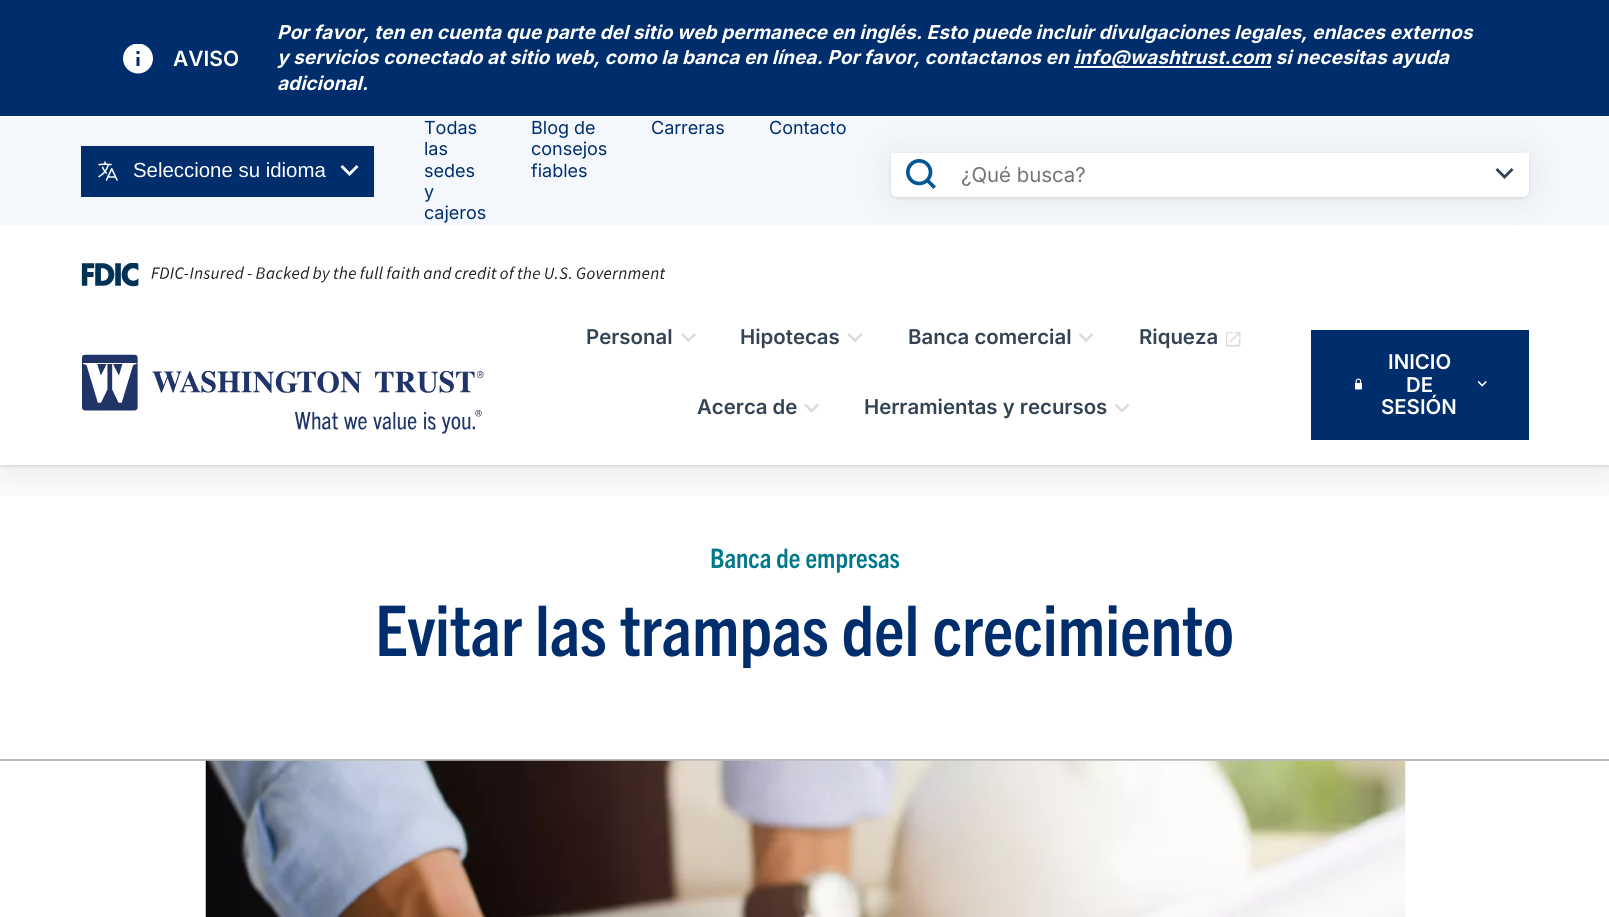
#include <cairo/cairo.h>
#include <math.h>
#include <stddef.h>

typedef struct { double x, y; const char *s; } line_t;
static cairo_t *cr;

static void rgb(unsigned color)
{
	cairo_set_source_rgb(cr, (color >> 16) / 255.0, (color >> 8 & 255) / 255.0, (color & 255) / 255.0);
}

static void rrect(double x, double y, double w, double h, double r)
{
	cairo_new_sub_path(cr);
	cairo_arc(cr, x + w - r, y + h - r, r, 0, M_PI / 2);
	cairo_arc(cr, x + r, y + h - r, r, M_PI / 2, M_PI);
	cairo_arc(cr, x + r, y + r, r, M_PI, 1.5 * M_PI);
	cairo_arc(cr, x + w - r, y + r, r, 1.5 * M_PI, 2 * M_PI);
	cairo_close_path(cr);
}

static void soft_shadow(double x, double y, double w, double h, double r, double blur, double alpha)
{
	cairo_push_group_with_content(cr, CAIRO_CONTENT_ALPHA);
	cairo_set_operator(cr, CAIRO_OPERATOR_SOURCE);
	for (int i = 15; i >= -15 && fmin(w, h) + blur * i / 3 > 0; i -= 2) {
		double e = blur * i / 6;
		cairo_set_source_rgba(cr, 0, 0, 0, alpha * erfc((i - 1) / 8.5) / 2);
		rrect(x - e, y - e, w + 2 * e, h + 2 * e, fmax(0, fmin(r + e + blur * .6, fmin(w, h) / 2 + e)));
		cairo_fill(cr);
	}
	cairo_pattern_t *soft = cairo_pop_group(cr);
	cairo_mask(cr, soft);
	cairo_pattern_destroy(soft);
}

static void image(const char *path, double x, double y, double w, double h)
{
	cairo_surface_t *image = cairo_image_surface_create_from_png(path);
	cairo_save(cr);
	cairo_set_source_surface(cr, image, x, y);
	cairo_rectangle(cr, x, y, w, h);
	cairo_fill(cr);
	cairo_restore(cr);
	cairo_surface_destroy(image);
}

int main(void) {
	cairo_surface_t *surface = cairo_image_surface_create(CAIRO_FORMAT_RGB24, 1609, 917);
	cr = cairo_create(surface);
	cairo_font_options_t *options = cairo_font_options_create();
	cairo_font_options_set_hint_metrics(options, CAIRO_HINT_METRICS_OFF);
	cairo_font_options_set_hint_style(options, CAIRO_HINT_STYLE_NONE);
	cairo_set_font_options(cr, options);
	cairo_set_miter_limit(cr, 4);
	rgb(0xffffff);
	cairo_paint(cr);
	rgb(0x002e6d);
	cairo_rectangle(cr, 0, 0, 1609, 116);
	cairo_fill(cr);
	image("img/1.png", 123, 44, 30, 30);
	rgb(0xffffff);
	cairo_rectangle(cr, 1074, 66, 197, 2);
	cairo_fill(cr);
	cairo_save(cr);
	cairo_rectangle(cr, 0, 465, 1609, 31);
	cairo_clip(cr);
	rgb(0x000000);
	soft_shadow(0, 293, 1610, 178, 0, 30, 0.1);
	cairo_restore(cr);
	rgb(0xf4f8fc);
	cairo_rectangle(cr, 0, 117, 1609, 108);
	cairo_fill(cr);
	rgb(0x002e6d);
	cairo_rectangle(cr, 81, 146, 293, 51);
	cairo_fill(cr);
	image("img/2.png", 98, 161, 20, 20);
	rgb(0xffffff);
	cairo_set_fill_rule(cr, CAIRO_FILL_RULE_EVEN_ODD);
	cairo_new_path(cr);
	cairo_move_to(cr, 358.5, 167);
	cairo_line_to(cr, 356.5, 165);
	cairo_line_to(cr, 349.5, 172);
	cairo_line_to(cr, 342.5, 165);
	cairo_line_to(cr, 340.5, 167);
	cairo_line_to(cr, 349.5, 176);
	cairo_close_path(cr);
	cairo_fill(cr);
	rgb(0x000000);
	soft_shadow(891, 155, 638, 43, 6, 1.5, 0.13);
	cairo_save(cr);
	cairo_set_fill_rule(cr, CAIRO_FILL_RULE_WINDING);
	cairo_rectangle(cr, 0, 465, 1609, 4);
	cairo_clip(cr);
	soft_shadow(0, 288, 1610, 179, 0, 2, 0.1);
	cairo_restore(cr);
	rgb(0xffffff);
	cairo_rectangle(cr, 0, 255, 1609, 32);
	cairo_fill(cr);
	rgb(0x000000);
	soft_shadow(891, 155, 638, 43, 6, 21, 0.07);
	rgb(0xffffff);
	cairo_new_path(cr);
	cairo_move_to(cr, 891, 153);
	cairo_line_to(cr, 1529, 153);
	cairo_line_to(cr, 1529, 191);
	cairo_curve_to(cr, 1529, 194.5, 1526.5, 197, 1523, 197);
	cairo_line_to(cr, 897, 197);
	cairo_curve_to(cr, 893.5, 197, 891, 194.5, 891, 191);
	cairo_close_path(cr);
	cairo_fill(cr);
	image("img/3.png", 906, 159, 30, 30);
	rgb(0x344353);
	cairo_new_path(cr);
	cairo_move_to(cr, 1513.5, 170);
	cairo_line_to(cr, 1511.5, 168);
	cairo_line_to(cr, 1504.5, 175);
	cairo_line_to(cr, 1497.5, 168);
	cairo_line_to(cr, 1495.5, 170);
	cairo_line_to(cr, 1504.5, 179);
	cairo_close_path(cr);
	cairo_fill(cr);
	image("img/4.png", 81, 263, 585, 24);
	image("img/5.png", 82, 354, 402, 80);
	image("img/6.png", 681, 333, 15, 9);
	image("img/7.png", 848, 333, 15, 9);
	image("img/7.png", 1079, 333, 15, 9);
	image("img/8.png", 1226, 332, 15, 15);
	image("img/9.png", 804, 404, 15, 9);
	image("img/10.png", 1115, 404, 15, 9);
	rgb(0x002e6d);
	cairo_rectangle(cr, 1311, 330, 218, 110);
	cairo_fill(cr);
	image("img/11.png", 1355, 378, 7, 12);
	image("img/12.png", 1478, 381, 9, 6);
	rgb(0xbbbbbb);
	cairo_rectangle(cr, 0, 759, 1609, 2);
	cairo_fill(cr);
	image("img/13.png", 205, 760, 1201, 157);
	cairo_select_font_face(cr, "Inter SemiBold", CAIRO_FONT_SLANT_NORMAL, CAIRO_FONT_WEIGHT_NORMAL);
	cairo_set_font_size(cr, 21);
	rgb(0xffffff);
	cairo_move_to(cr, 173, 66);
	cairo_show_text(cr, "AVISO");
	cairo_select_font_face(cr, "Inter", CAIRO_FONT_SLANT_ITALIC, CAIRO_FONT_WEIGHT_BOLD);
	cairo_set_font_size(cr, 19.12);
	{
		static const line_t items[] = {
			{277, 39, "Por favor, ten en cuenta que parte del sitio web permanece en inglés. Esto puede incluir divulgaciones legales, enlaces externos"},
			{277, 64, "y servicios conectado at sitio web, como la banca en línea. Por favor, contactanos en"},
			{1074, 64, "info@washtrust.com si necesitas ayuda"},
			{277, 90, "adicional."},
		};
		for (size_t i = 0; i < sizeof items / sizeof *items; i++) {
			cairo_move_to(cr, items[i].x, items[i].y);
			cairo_show_text(cr, items[i].s);
		}
	}
	cairo_select_font_face(cr, "Liberation Sans", CAIRO_FONT_SLANT_NORMAL, CAIRO_FONT_WEIGHT_NORMAL);
	cairo_set_font_size(cr, 20.4);
	cairo_move_to(cr, 133, 177);
	cairo_show_text(cr, "Seleccione su idioma");
	cairo_select_font_face(cr, "Inter", CAIRO_FONT_SLANT_NORMAL, CAIRO_FONT_WEIGHT_NORMAL);
	cairo_set_font_size(cr, 18);
	rgb(0x002e6d);
	{
		static const line_t items[] = {
			{424, 134, "Todas"},
			{424, 155, "las"},
			{424, 177, "sedes"},
			{424, 198, "y"},
			{424, 219, "cajeros"},
			{531, 134, "Blog de"},
			{531, 155, "consejos"},
			{531, 177, "fiables"},
			{651, 134, "Carreras"},
			{769, 134, "Contacto"},
		};
		for (size_t i = 0; i < sizeof items / sizeof *items; i++) {
			cairo_move_to(cr, items[i].x, items[i].y);
			cairo_show_text(cr, items[i].s);
		}
	}
	cairo_set_font_size(cr, 20.4);
	rgb(0x757575);
	cairo_move_to(cr, 961, 182);
	cairo_show_text(cr, "¿Qué busca?");
	cairo_select_font_face(cr, "Inter SemiBold", CAIRO_FONT_SLANT_NORMAL, CAIRO_FONT_WEIGHT_NORMAL);
	rgb(0x344353);
	{
		static const line_t items[] = {
			{586, 344, "Personal"},
			{740, 344, "Hipotecas"},
			{908, 344, "Banca comercial"},
			{1139, 344, "Riqueza"},
			{697, 414, "Acerca de"},
			{864, 414, "Herramientas y recursos"},
		};
		for (size_t i = 0; i < sizeof items / sizeof *items; i++) {
			cairo_move_to(cr, items[i].x, items[i].y);
			cairo_show_text(cr, items[i].s);
		}
	}
	rgb(0xffffff);
	{
		static const line_t items[] = {
			{1388, 369, "INICIO"},
			{1406, 392, "DE"},
			{1381, 414, "SESIÓN"},
		};
		for (size_t i = 0; i < sizeof items / sizeof *items; i++) {
			cairo_move_to(cr, items[i].x, items[i].y);
			cairo_show_text(cr, items[i].s);
		}
	}
	cairo_select_font_face(cr, "Trade Gothic", CAIRO_FONT_SLANT_NORMAL, CAIRO_FONT_WEIGHT_BOLD);
	cairo_set_font_size(cr, 27);
	rgb(0x00788c);
	cairo_move_to(cr, 710, 568);
	cairo_show_text(cr, "Banca de empresas");
	cairo_set_font_size(cr, 70.1);
	rgb(0x002e6d);
	cairo_move_to(cr, 375, 656);
	cairo_show_text(cr, "Evitar las trampas del crecimiento");
	cairo_surface_write_to_png(surface, "page.png");
	cairo_font_options_destroy(options);
	cairo_destroy(cr);
	cairo_surface_destroy(surface);
	return 0;
}
